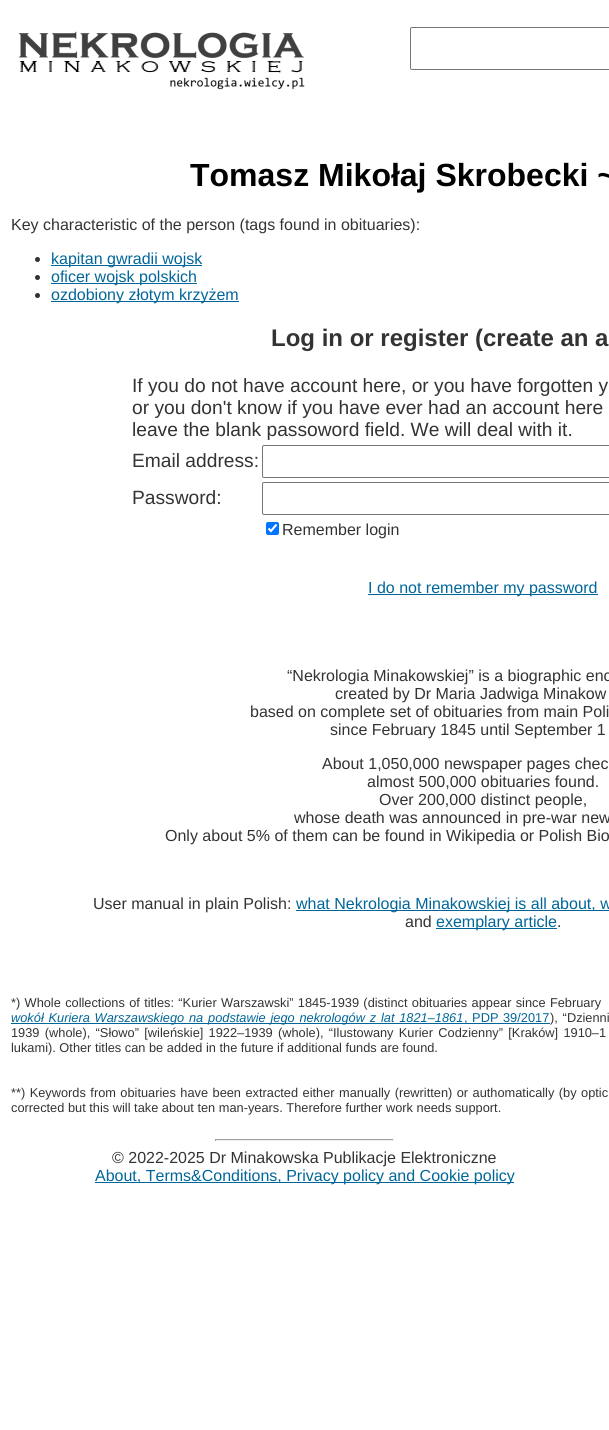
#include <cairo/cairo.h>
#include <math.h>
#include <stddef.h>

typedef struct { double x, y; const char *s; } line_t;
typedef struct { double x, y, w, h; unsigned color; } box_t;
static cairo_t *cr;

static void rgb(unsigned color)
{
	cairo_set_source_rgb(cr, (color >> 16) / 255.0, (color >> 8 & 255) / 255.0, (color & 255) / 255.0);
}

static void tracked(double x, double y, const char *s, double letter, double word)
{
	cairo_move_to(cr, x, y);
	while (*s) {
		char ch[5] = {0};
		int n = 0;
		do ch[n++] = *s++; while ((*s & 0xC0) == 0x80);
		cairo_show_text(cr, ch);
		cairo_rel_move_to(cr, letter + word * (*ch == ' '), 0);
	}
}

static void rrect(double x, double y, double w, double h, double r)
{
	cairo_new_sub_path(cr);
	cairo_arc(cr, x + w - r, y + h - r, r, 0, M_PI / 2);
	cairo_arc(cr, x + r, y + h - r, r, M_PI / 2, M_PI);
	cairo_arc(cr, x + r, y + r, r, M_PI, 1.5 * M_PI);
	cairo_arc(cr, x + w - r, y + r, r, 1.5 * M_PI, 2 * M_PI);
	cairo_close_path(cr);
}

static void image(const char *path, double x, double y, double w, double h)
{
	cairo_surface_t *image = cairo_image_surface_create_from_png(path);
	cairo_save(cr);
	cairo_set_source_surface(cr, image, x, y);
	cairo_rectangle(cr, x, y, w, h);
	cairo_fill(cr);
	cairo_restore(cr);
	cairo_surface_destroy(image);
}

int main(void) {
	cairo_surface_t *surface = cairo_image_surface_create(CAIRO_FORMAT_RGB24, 609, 1430);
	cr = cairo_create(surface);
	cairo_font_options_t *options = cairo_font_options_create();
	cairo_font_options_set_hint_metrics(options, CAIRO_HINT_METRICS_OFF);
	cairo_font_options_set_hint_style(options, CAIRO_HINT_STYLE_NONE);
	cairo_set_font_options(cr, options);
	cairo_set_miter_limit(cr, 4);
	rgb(0xffffff);
	cairo_paint(cr);
	image("img/1.png", 18, 31, 287, 59);
	rrect(410.5, 27.5, 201, 42, 1.5);
	rgb(0x767676);
	cairo_set_line_width(cr, 1);
	cairo_stroke(cr);
	rgb(0x333333);
	cairo_arc(cr, 37.5, 259.5, 2.5, 0, 2 * M_PI);
	cairo_fill(cr);
	rgb(0x006699);
	cairo_rectangle(cr, 51, 265, 151, 1);
	cairo_fill(cr);
	rgb(0x333333);
	cairo_arc(cr, 37.5, 277.5, 2.5, 0, 2 * M_PI);
	cairo_fill(cr);
	rgb(0x006699);
	cairo_rectangle(cr, 51, 283, 146, 1);
	cairo_fill(cr);
	rgb(0x333333);
	cairo_arc(cr, 37.5, 295.5, 2.5, 0, 2 * M_PI);
	cairo_fill(cr);
	rgb(0x006699);
	cairo_rectangle(cr, 51, 301, 188, 1);
	cairo_fill(cr);
	rrect(262.5, 445.5, 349, 32, 1.5);
	rgb(0x767676);
	cairo_stroke(cr);
	rrect(262.5, 482.5, 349, 32, 1.5);
	cairo_stroke(cr);
	rgb(0x0075ff);
	rrect(266, 522, 13, 13, 2);
	cairo_fill(cr);
	cairo_new_path(cr);
	cairo_move_to(cr, 268.5, 528.5);
	cairo_line_to(cr, 271, 531);
	cairo_line_to(cr, 276.5, 524.5);
	rgb(0xffffff);
	cairo_set_line_width(cr, 2.1);
	cairo_stroke(cr);
	{
		static const box_t items[] = {
			{368, 594, 230, 1, 0x006699},
			{296, 910, 313, 1, 0x006699},
			{436, 928, 121, 1, 0x006699},
			{11, 1023, 539, 1, 0x006699},
			{215, 1139, 179, 1, 0x9f9f9f},
			{393, 1139, 1, 2, 0xeeeeee},
			{215, 1140, 179, 1, 0xeeeeee},
			{215, 1139, 1, 2, 0x9f9f9f},
			{95, 1182, 419, 1, 0x006699},
		};
		for (size_t i = 0; i < sizeof items / sizeof *items; i++) {
			rgb(items[i].color);
			cairo_rectangle(cr, items[i].x, items[i].y, items[i].w, items[i].h);
			cairo_fill(cr);
		}
	}
	cairo_select_font_face(cr, "Liberation Sans", CAIRO_FONT_SLANT_NORMAL, CAIRO_FONT_WEIGHT_BOLD);
	cairo_set_font_size(cr, 32);
	rgb(0x000000);
	cairo_move_to(cr, 190, 186);
	cairo_show_text(cr, "Tomasz Mikołaj Skrobecki ~");
	cairo_select_font_face(cr, "Liberation Sans", CAIRO_FONT_SLANT_NORMAL, CAIRO_FONT_WEIGHT_NORMAL);
	cairo_set_font_size(cr, 16);
	rgb(0x333333);
	cairo_move_to(cr, 11, 230);
	cairo_show_text(cr, "Key characteristic of the person (tags found in obituaries):");
	rgb(0x006699);
	{
		static const line_t items[] = {
			{51, 264, "kapitan gwradii wojsk"},
			{51, 282, "oficer wojsk polskich"},
			{51, 300, "ozdobiony złotym krzyżem"},
		};
		for (size_t i = 0; i < sizeof items / sizeof *items; i++) {
			cairo_move_to(cr, items[i].x, items[i].y);
			cairo_show_text(cr, items[i].s);
		}
	}
	cairo_select_font_face(cr, "Liberation Sans", CAIRO_FONT_SLANT_NORMAL, CAIRO_FONT_WEIGHT_BOLD);
	cairo_set_font_size(cr, 24);
	rgb(0x333333);
	cairo_move_to(cr, 271, 346);
	cairo_show_text(cr, "Log in or register (create an a");
	cairo_select_font_face(cr, "Liberation Sans", CAIRO_FONT_SLANT_NORMAL, CAIRO_FONT_WEIGHT_NORMAL);
	cairo_set_font_size(cr, 19.2);
	{
		static const line_t items[] = {
			{132, 392, "If you do not have account here, or you have forgotten y"},
			{132, 414, "or you don't know if you have ever had an account here"},
			{132, 436, "leave the blank passoword field. We will deal with it."},
			{132, 467, "Email address:"},
			{132, 504, "Password:"},
		};
		for (size_t i = 0; i < sizeof items / sizeof *items; i++) {
			cairo_move_to(cr, items[i].x, items[i].y);
			cairo_show_text(cr, items[i].s);
		}
	}
	cairo_set_font_size(cr, 16);
	cairo_move_to(cr, 282, 535);
	cairo_show_text(cr, "Remember login");
	rgb(0x006699);
	cairo_move_to(cr, 368, 593);
	cairo_show_text(cr, "I do not remember my password");
	rgb(0x333333);
	{
		static const line_t items[] = {
			{287, 681, "“Nekrologia Minakowskiej” is a biographic enc"},
			{335, 699, "created by Dr Maria Jadwiga Minakow"},
			{250, 717, "based on complete set of obituaries from main Poli"},
			{330, 735, "since February 1845 until September 1"},
			{322, 769, "About 1,050,000 newspaper pages chec"},
			{367, 787, "almost 500,000 obituaries found."},
			{379, 805, "Over 200,000 distinct people,"},
			{294, 823, "whose death was announced in pre-war new"},
			{165, 841, "Only about 5% of them can be found in Wikipedia or Polish Bio"},
			{93, 909, "User manual in plain Polish:"},
		};
		for (size_t i = 0; i < sizeof items / sizeof *items; i++) {
			cairo_move_to(cr, items[i].x, items[i].y);
			cairo_show_text(cr, items[i].s);
		}
	}
	rgb(0x006699);
	cairo_move_to(cr, 296, 909);
	cairo_show_text(cr, "what Nekrologia Minakowskiej is all about, w");
	rgb(0x333333);
	cairo_move_to(cr, 405, 927);
	cairo_show_text(cr, "and");
	rgb(0x006699);
	cairo_move_to(cr, 436, 927);
	cairo_show_text(cr, "exemplary article");
	rgb(0x333333);
	cairo_move_to(cr, 557, 927);
	cairo_show_text(cr, ".");
	cairo_set_font_size(cr, 12.8);
	tracked(11, 1007, "*) Whole collections of titles: “Kurier Warszawski” 1845-1939 (distinct obituaries appear since February", 0, 0.75);
	cairo_select_font_face(cr, "Liberation Sans", CAIRO_FONT_SLANT_ITALIC, CAIRO_FONT_WEIGHT_NORMAL);
	rgb(0x006699);
	tracked(11, 1022, "wokół Kuriera Warszawskiego na podstawie jego nekrologów z lat 1821–1861", 0, 1.25);
	cairo_select_font_face(cr, "Liberation Sans", CAIRO_FONT_SLANT_NORMAL, CAIRO_FONT_WEIGHT_NORMAL);
	tracked(464, 1022, ", PDP 39/2017", 0, 1);
	rgb(0x333333);
	tracked(550, 1022, "), “Dzienni", 0, 1.25);
	tracked(11, 1037, "1939 (whole), “Słowo” [wileńskie] 1922–1939 (whole), “Ilustowany Kurier Codzienny” [Kraków] 1910–1", 0, 1.75);
	cairo_move_to(cr, 11, 1052);
	cairo_show_text(cr, "lukami). Other titles can be added in the future if additional funds are found.");
	tracked(11, 1097, "**) Keywords from obituaries have been extracted either manually (rewritten) or authomatically (by optic", 0, 0.9);
	cairo_move_to(cr, 11, 1112);
	cairo_show_text(cr, "corrected but this will take about ten man-years. Therefore further work needs support.");
	cairo_set_font_size(cr, 16);
	cairo_move_to(cr, 112, 1163);
	cairo_show_text(cr, "© 2022-2025 Dr Minakowska Publikacje Elektroniczne");
	rgb(0x006699);
	cairo_move_to(cr, 95, 1181);
	cairo_show_text(cr, "About, Terms&Conditions, Privacy policy and Cookie policy");
	cairo_surface_write_to_png(surface, "page.png");
	cairo_font_options_destroy(options);
	cairo_destroy(cr);
	cairo_surface_destroy(surface);
	return 0;
}
